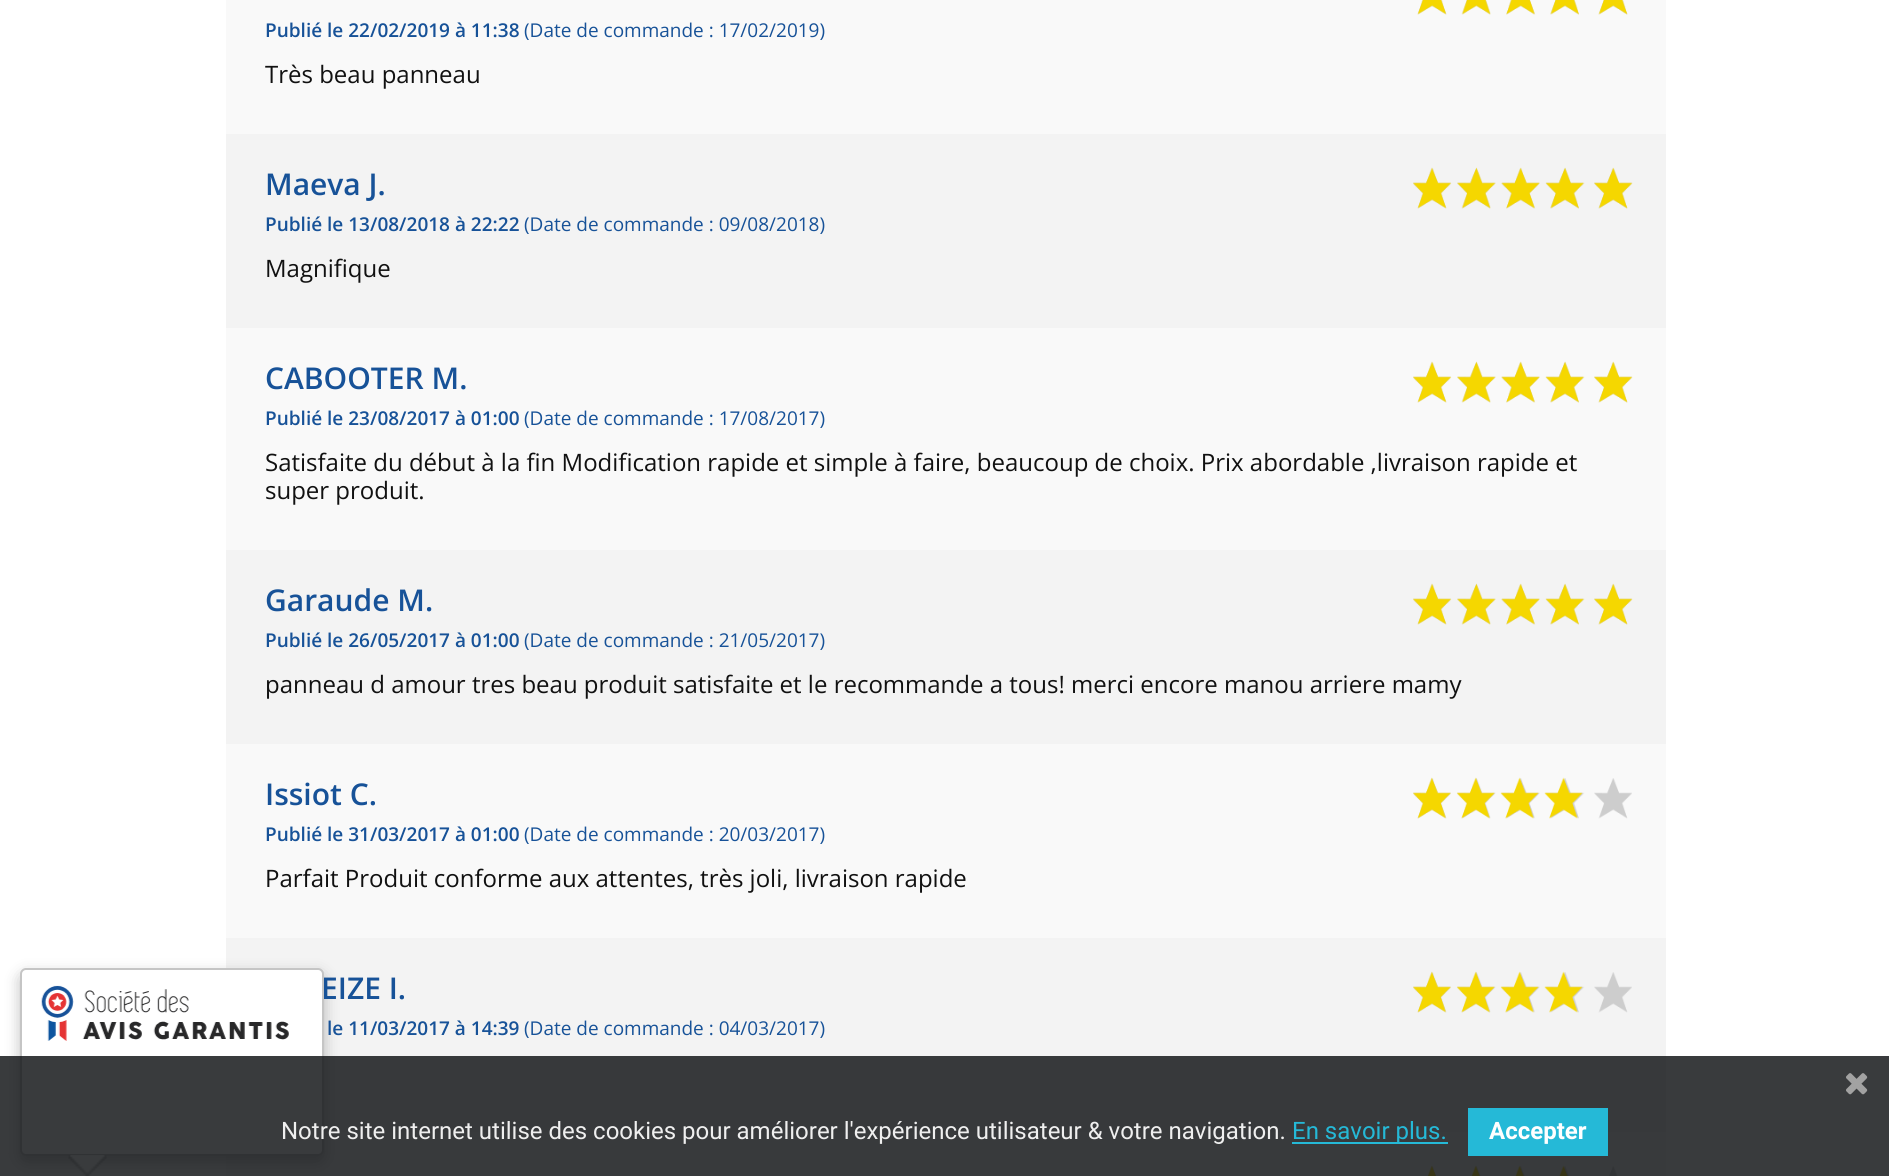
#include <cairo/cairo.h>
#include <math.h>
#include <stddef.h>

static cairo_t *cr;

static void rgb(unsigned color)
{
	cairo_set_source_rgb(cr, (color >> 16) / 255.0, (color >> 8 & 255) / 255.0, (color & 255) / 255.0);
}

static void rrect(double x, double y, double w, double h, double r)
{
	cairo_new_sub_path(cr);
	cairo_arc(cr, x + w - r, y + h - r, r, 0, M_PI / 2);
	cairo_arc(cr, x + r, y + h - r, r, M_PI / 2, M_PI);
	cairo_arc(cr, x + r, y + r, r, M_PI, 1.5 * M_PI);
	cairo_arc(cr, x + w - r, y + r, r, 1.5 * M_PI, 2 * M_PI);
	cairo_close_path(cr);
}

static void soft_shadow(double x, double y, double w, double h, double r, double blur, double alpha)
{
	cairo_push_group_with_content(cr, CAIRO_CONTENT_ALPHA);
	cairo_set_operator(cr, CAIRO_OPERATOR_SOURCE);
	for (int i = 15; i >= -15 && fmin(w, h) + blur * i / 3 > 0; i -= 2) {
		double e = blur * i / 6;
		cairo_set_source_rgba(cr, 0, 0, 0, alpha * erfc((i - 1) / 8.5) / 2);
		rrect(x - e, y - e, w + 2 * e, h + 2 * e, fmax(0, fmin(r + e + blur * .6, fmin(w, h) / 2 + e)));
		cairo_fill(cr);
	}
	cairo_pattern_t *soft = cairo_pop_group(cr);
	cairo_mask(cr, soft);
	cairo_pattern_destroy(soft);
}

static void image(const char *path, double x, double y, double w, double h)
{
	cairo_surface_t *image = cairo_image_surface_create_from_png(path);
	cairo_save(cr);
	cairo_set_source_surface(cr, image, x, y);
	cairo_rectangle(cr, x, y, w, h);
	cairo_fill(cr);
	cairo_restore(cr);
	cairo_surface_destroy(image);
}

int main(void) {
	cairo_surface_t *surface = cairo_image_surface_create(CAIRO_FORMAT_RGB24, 1889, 1176);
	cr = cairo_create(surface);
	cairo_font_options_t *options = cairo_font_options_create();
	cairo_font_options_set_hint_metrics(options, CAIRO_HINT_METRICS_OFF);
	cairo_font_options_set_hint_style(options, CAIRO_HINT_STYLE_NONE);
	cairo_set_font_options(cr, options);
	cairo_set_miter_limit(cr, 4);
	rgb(0xffffff);
	cairo_paint(cr);
	rgb(0xf9f9f9);
	cairo_rectangle(cr, 226, 0, 1440, 134);
	cairo_fill(cr);
	image("img/1.png", 1417, 0, 211, 15);
	image("img/2.png", 1417, 0, 211, 15);
	rgb(0xf3f3f3);
	cairo_rectangle(cr, 226, 134, 1440, 194);
	cairo_fill(cr);
	image("img/4.png", 1413, 168, 219, 41);
	image("img/3.png", 1413, 167, 220, 42);
	rgb(0xf9f9f9);
	cairo_rectangle(cr, 226, 328, 1440, 222);
	cairo_fill(cr);
	image("img/6.png", 1413, 362, 219, 41);
	image("img/5.png", 1413, 361, 220, 42);
	rgb(0xf3f3f3);
	cairo_rectangle(cr, 226, 550, 1440, 194);
	cairo_fill(cr);
	image("img/4.png", 1413, 584, 219, 41);
	image("img/3.png", 1413, 583, 220, 42);
	rgb(0xf9f9f9);
	cairo_rectangle(cr, 226, 744, 1440, 194);
	cairo_fill(cr);
	image("img/6.png", 1413, 778, 219, 41);
	image("img/7.png", 1413, 777, 170, 42);
	rgb(0xf3f3f3);
	cairo_rectangle(cr, 226, 938, 1440, 194);
	cairo_fill(cr);
	image("img/4.png", 1413, 972, 219, 41);
	image("img/8.png", 1413, 971, 170, 42);
	rgb(0xf9f9f9);
	cairo_rectangle(cr, 226, 1132, 1440, 44);
	cairo_fill(cr);
	image("img/10.png", 1428, 1166, 190, 10);
	image("img/9.png", 1427, 1165, 141, 11);
	rgb(0x000000);
	soft_shadow(20, 974, 304, 188, 6, 7.5, 0.25);
	cairo_select_font_face(cr, "Open Sans SemiBold", CAIRO_FONT_SLANT_NORMAL, CAIRO_FONT_WEIGHT_NORMAL);
	cairo_set_font_size(cr, 19);
	rgb(0x175298);
	cairo_move_to(cr, 265, 37);
	cairo_show_text(cr, "Publié le 22/02/2019 à 11:38");
	cairo_select_font_face(cr, "Open Sans", CAIRO_FONT_SLANT_NORMAL, CAIRO_FONT_WEIGHT_NORMAL);
	cairo_move_to(cr, 524, 37);
	cairo_show_text(cr, "(Date de commande : 17/02/2019)");
	cairo_set_font_size(cr, 24);
	rgb(0x111111);
	cairo_move_to(cr, 265, 83);
	cairo_show_text(cr, "Très beau panneau");
	cairo_select_font_face(cr, "Open Sans SemiBold", CAIRO_FONT_SLANT_NORMAL, CAIRO_FONT_WEIGHT_NORMAL);
	cairo_set_font_size(cr, 30);
	rgb(0x175298);
	cairo_move_to(cr, 265, 195);
	cairo_show_text(cr, "Maeva J.");
	cairo_set_font_size(cr, 19);
	cairo_move_to(cr, 265, 231);
	cairo_show_text(cr, "Publié le 13/08/2018 à 22:22");
	cairo_select_font_face(cr, "Open Sans", CAIRO_FONT_SLANT_NORMAL, CAIRO_FONT_WEIGHT_NORMAL);
	cairo_move_to(cr, 524, 231);
	cairo_show_text(cr, "(Date de commande : 09/08/2018)");
	cairo_set_font_size(cr, 24);
	rgb(0x111111);
	cairo_move_to(cr, 265, 277);
	cairo_show_text(cr, "Magnifique");
	cairo_select_font_face(cr, "Open Sans SemiBold", CAIRO_FONT_SLANT_NORMAL, CAIRO_FONT_WEIGHT_NORMAL);
	cairo_set_font_size(cr, 30);
	rgb(0x175298);
	cairo_move_to(cr, 265, 389);
	cairo_show_text(cr, "CABOOTER M.");
	cairo_set_font_size(cr, 19);
	cairo_move_to(cr, 265, 425);
	cairo_show_text(cr, "Publié le 23/08/2017 à 01:00");
	cairo_select_font_face(cr, "Open Sans", CAIRO_FONT_SLANT_NORMAL, CAIRO_FONT_WEIGHT_NORMAL);
	cairo_move_to(cr, 524, 425);
	cairo_show_text(cr, "(Date de commande : 17/08/2017)");
	cairo_set_font_size(cr, 24);
	rgb(0x111111);
	cairo_move_to(cr, 265, 471);
	cairo_show_text(cr, "Satisfaite du début à la fin Modification rapide et simple à faire, beaucoup de choix. Prix abordable ,livraison rapide et");
	cairo_move_to(cr, 265, 499);
	cairo_show_text(cr, "super produit.");
	cairo_select_font_face(cr, "Open Sans SemiBold", CAIRO_FONT_SLANT_NORMAL, CAIRO_FONT_WEIGHT_NORMAL);
	cairo_set_font_size(cr, 30);
	rgb(0x175298);
	cairo_move_to(cr, 265, 611);
	cairo_show_text(cr, "Garaude M.");
	cairo_set_font_size(cr, 19);
	cairo_move_to(cr, 265, 647);
	cairo_show_text(cr, "Publié le 26/05/2017 à 01:00");
	cairo_select_font_face(cr, "Open Sans", CAIRO_FONT_SLANT_NORMAL, CAIRO_FONT_WEIGHT_NORMAL);
	cairo_move_to(cr, 524, 647);
	cairo_show_text(cr, "(Date de commande : 21/05/2017)");
	cairo_set_font_size(cr, 24);
	rgb(0x111111);
	cairo_move_to(cr, 265, 693);
	cairo_show_text(cr, "panneau d amour tres beau produit satisfaite et le recommande a tous! merci encore manou arriere mamy");
	cairo_select_font_face(cr, "Open Sans SemiBold", CAIRO_FONT_SLANT_NORMAL, CAIRO_FONT_WEIGHT_NORMAL);
	cairo_set_font_size(cr, 30);
	rgb(0x175298);
	cairo_move_to(cr, 265, 805);
	cairo_show_text(cr, "Issiot C.");
	cairo_set_font_size(cr, 19);
	cairo_move_to(cr, 265, 841);
	cairo_show_text(cr, "Publié le 31/03/2017 à 01:00");
	cairo_select_font_face(cr, "Open Sans", CAIRO_FONT_SLANT_NORMAL, CAIRO_FONT_WEIGHT_NORMAL);
	cairo_move_to(cr, 524, 841);
	cairo_show_text(cr, "(Date de commande : 20/03/2017)");
	cairo_set_font_size(cr, 24);
	rgb(0x111111);
	cairo_move_to(cr, 265, 887);
	cairo_show_text(cr, "Parfait Produit conforme aux attentes, très joli, livraison rapide");
	cairo_select_font_face(cr, "Open Sans SemiBold", CAIRO_FONT_SLANT_NORMAL, CAIRO_FONT_WEIGHT_NORMAL);
	cairo_set_font_size(cr, 30);
	rgb(0x175298);
	cairo_move_to(cr, 321, 999);
	cairo_show_text(cr, "EIZE I.");
	cairo_set_font_size(cr, 19);
	cairo_move_to(cr, 327, 1035);
	cairo_show_text(cr, "le 11/03/2017 à 14:39");
	cairo_select_font_face(cr, "Open Sans", CAIRO_FONT_SLANT_NORMAL, CAIRO_FONT_WEIGHT_NORMAL);
	cairo_move_to(cr, 524, 1035);
	cairo_show_text(cr, "(Date de commande : 04/03/2017)");
	rgb(0xffffff);
	rrect(21, 969, 302, 186, 5);
	cairo_fill_preserve(cr);
	rgb(0xc5c5c5);
	cairo_stroke(cr);
	image("img/11.png", 41, 985, 248, 56);
	image("img/12.png", 68, 1155, 39, 21);
	cairo_set_source_rgba(cr, 0.09, 0.098, 0.11, 0.85);
	cairo_rectangle(cr, 0, 1056, 1889, 120);
	cairo_fill(cr);
	image("img/13.png", 1846, 1073, 22, 22);
	cairo_select_font_face(cr, "Roboto", CAIRO_FONT_SLANT_NORMAL, CAIRO_FONT_WEIGHT_NORMAL);
	cairo_set_font_size(cr, 24);
	rgb(0xefefef);
	cairo_move_to(cr, 281, 1139);
	cairo_show_text(cr, "Notre site internet utilise des cookies pour améliorer l'expérience utilisateur & votre navigation.");
	rgb(0x25b9d7);
	cairo_rectangle(cr, 1292, 1142, 156, 2);
	cairo_fill(cr);
	cairo_move_to(cr, 1292, 1139);
	cairo_show_text(cr, "En savoir plus.");
	cairo_rectangle(cr, 1468, 1108, 140, 48);
	cairo_fill(cr);
	cairo_select_font_face(cr, "Roboto", CAIRO_FONT_SLANT_NORMAL, CAIRO_FONT_WEIGHT_BOLD);
	rgb(0xffffff);
	cairo_move_to(cr, 1489, 1139);
	cairo_show_text(cr, "Accepter");
	cairo_surface_write_to_png(surface, "page.png");
	cairo_font_options_destroy(options);
	cairo_destroy(cr);
	cairo_surface_destroy(surface);
	return 0;
}
